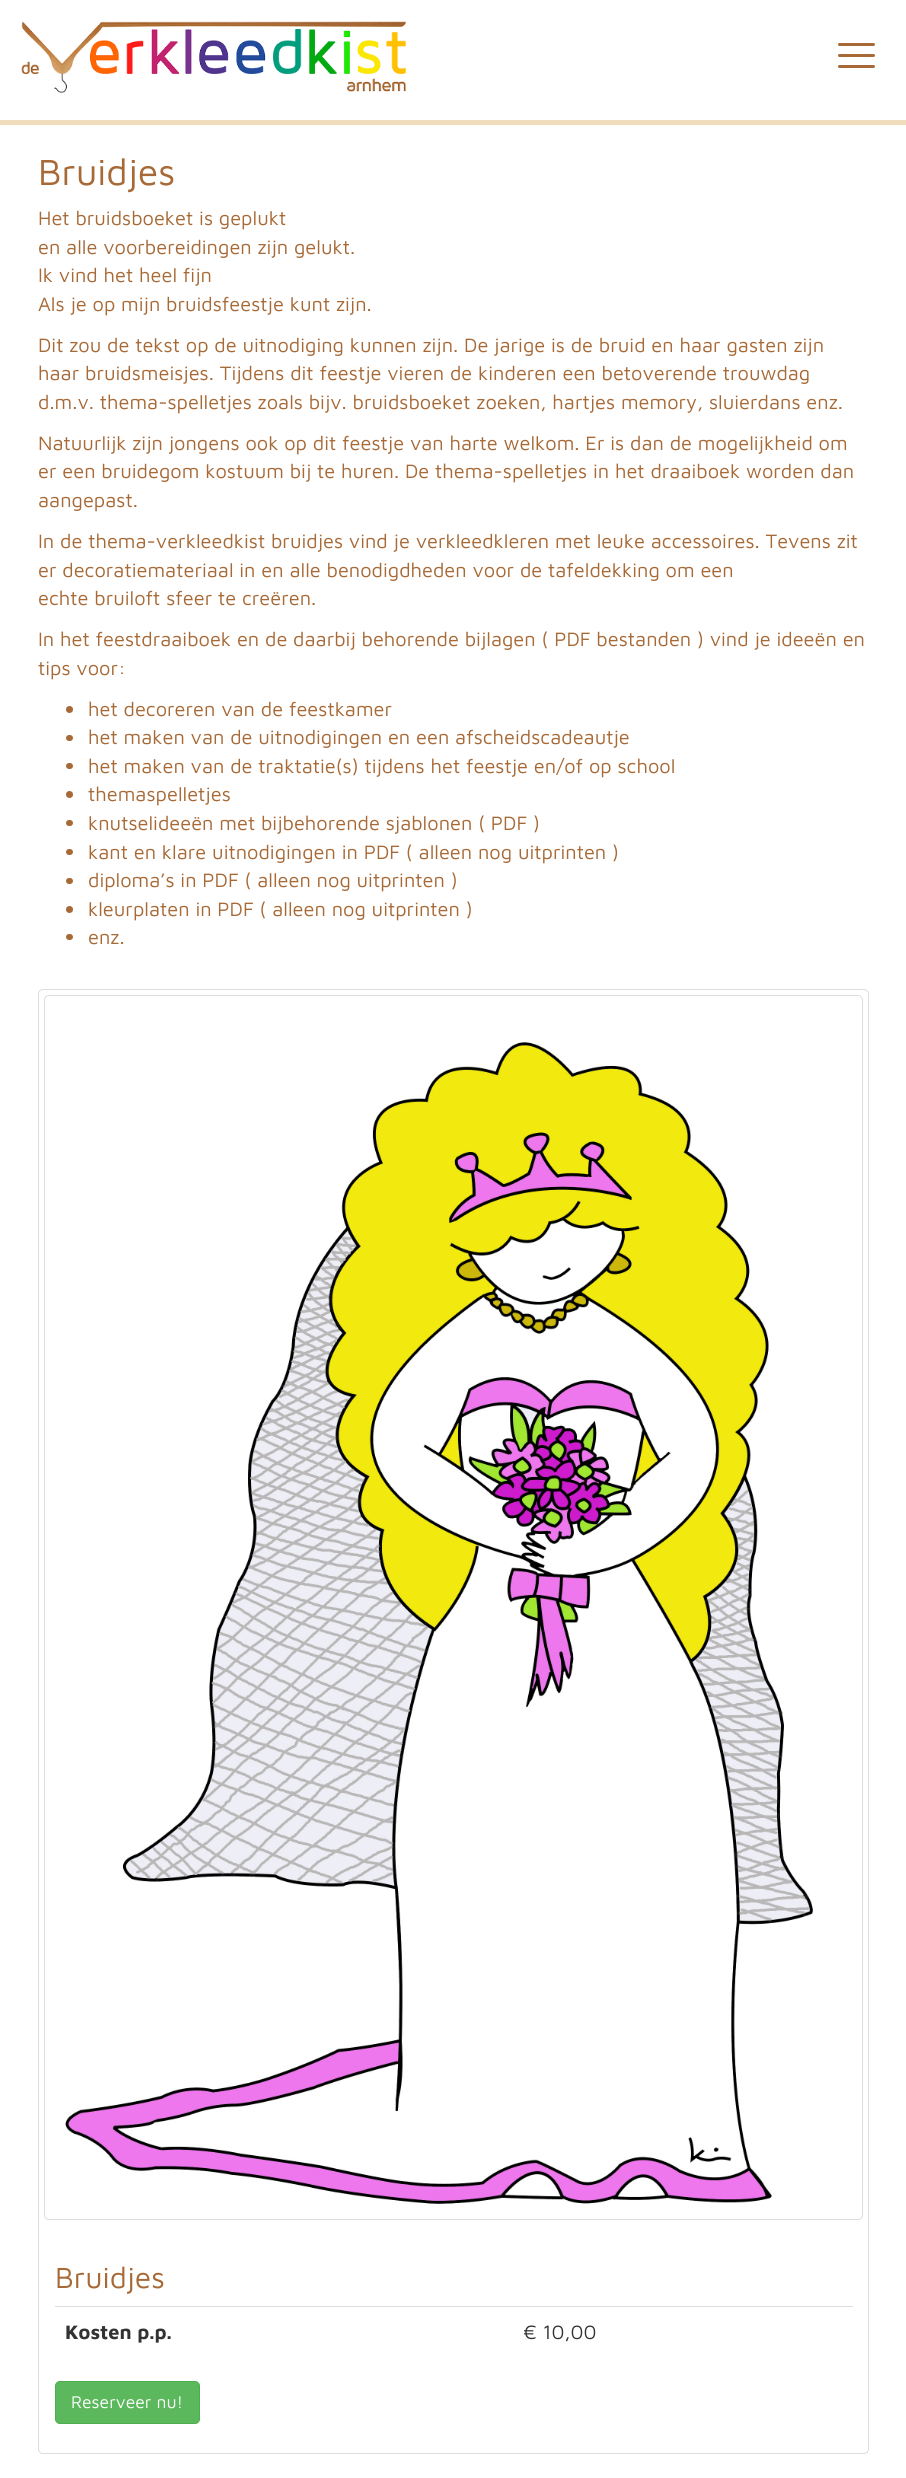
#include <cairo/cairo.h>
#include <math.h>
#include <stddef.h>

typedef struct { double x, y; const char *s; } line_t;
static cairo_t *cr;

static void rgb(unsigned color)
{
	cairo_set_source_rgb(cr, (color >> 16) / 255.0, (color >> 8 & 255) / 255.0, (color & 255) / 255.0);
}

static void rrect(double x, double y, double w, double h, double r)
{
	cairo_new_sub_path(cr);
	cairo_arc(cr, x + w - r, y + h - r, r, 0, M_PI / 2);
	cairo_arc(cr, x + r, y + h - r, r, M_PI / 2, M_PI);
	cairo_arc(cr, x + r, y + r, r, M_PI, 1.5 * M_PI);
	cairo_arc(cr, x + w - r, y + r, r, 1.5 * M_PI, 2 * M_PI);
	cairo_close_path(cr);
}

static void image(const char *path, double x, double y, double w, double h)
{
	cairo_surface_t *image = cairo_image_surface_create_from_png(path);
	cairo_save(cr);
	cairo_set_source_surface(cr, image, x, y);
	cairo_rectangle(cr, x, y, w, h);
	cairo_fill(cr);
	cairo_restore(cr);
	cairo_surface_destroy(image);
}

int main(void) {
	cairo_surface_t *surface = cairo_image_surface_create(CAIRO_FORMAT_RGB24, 906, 2478);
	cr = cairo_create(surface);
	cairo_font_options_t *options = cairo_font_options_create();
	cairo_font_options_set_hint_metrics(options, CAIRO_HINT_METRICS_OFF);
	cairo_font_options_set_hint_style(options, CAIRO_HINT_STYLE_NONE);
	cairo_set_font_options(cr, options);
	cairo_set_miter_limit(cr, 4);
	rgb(0xffffff);
	cairo_paint(cr);
	rgb(0xf1ddbc);
	cairo_rectangle(cr, 0, 120, 906, 5);
	cairo_fill(cr);
	image("img/1.png", 21, 21, 385, 72);
	rgb(0xa76936);
	rrect(838, 43, 37, 3, 1.5);
	cairo_fill(cr);
	rrect(838, 54, 37, 3, 1.5);
	cairo_fill(cr);
	rrect(838, 65, 37, 3, 1.5);
	cairo_fill(cr);
	cairo_arc(cr, 69.5, 709.5, 3.5, 0, 2 * M_PI);
	cairo_fill(cr);
	rrect(66, 735, 7, 6, 3);
	cairo_fill(cr);
	rrect(66, 763, 7, 6, 3);
	cairo_fill(cr);
	cairo_arc(cr, 69.5, 794.5, 3.5, 0, 2 * M_PI);
	cairo_fill(cr);
	rrect(66, 820, 7, 6, 3);
	cairo_fill(cr);
	rrect(66, 849, 7, 6, 3);
	cairo_fill(cr);
	rrect(66, 878, 7, 6, 3);
	cairo_fill(cr);
	cairo_arc(cr, 69.5, 909.5, 3.5, 0, 2 * M_PI);
	cairo_fill(cr);
	rrect(66, 934, 7, 6, 3);
	cairo_fill(cr);
	rrect(38.5, 989.5, 830, 1464, 4.5);
	rgb(0xdddddd);
	cairo_set_line_width(cr, 1);
	cairo_stroke(cr);
	rrect(44.5, 995.5, 818, 1224, 4.5);
	cairo_stroke(cr);
	image("img/2.png", 65, 1042, 748, 1162);
	cairo_rectangle(cr, 55, 2306, 798, 1);
	cairo_fill(cr);
	rgb(0x5cb85c);
	rrect(55.5, 2381.5, 144, 42, 4.5);
	cairo_fill_preserve(cr);
	rgb(0x4cae4c);
	cairo_stroke(cr);
	cairo_select_font_face(cr, "Maven Pro", CAIRO_FONT_SLANT_NORMAL, CAIRO_FONT_WEIGHT_NORMAL);
	cairo_set_font_size(cr, 37.5);
	rgb(0xa76936);
	cairo_move_to(cr, 38, 185);
	cairo_show_text(cr, "Bruidjes");
	cairo_set_font_size(cr, 20);
	{
		static const line_t items[] = {
			{38, 225, "Het bruidsboeket is geplukt"},
			{38, 254, "en alle voorbereidingen zijn gelukt."},
			{38, 282, "Ik vind het heel fijn"},
			{38, 311, "Als je op mijn bruidsfeestje kunt zijn."},
			{38, 352, "Dit zou de tekst op de uitnodiging kunnen zijn. De jarige is de bruid en haar gasten zijn"},
			{38, 380, "haar bruidsmeisjes. Tijdens dit feestje vieren de kinderen een betoverende trouwdag"},
			{38, 409, "d.m.v. thema-spelletjes zoals bijv. bruidsboeket zoeken, hartjes memory, sluierdans enz."},
			{38, 450, "Natuurlijk zijn jongens ook op dit feestje van harte welkom. Er is dan de mogelijkheid om"},
			{38, 478, "er een bruidegom kostuum bij te huren. De thema-spelletjes in het draaiboek worden dan"},
			{38, 507, "aangepast."},
			{38, 548, "In de thema-verkleedkist bruidjes vind je verkleedkleren met leuke accessoires. Tevens zit"},
			{38, 577, "er decoratiemateriaal in en alle benodigdheden voor de tafeldekking om een"},
			{38, 605, "echte bruiloft sfeer te creëren."},
			{38, 646, "In het feestdraaiboek en de daarbij behorende bijlagen ( PDF bestanden ) vind je ideeën en"},
			{38, 675, "tips voor:"},
			{88, 716, "het decoreren van de feestkamer"},
			{88, 744, "het maken van de uitnodigingen en een afscheidscadeautje"},
			{88, 773, "het maken van de traktatie(s) tijdens het feestje en/of op school"},
			{88, 801, "themaspelletjes"},
			{88, 830, "knutselideeën met bijbehorende sjablonen ( PDF )"},
			{88, 859, "kant en klare uitnodigingen in PDF ( alleen nog uitprinten )"},
			{88, 887, "diploma’s in PDF ( alleen nog uitprinten )"},
			{88, 916, "kleurplaten in PDF ( alleen nog uitprinten )"},
			{88, 944, "enz."},
		};
		for (size_t i = 0; i < sizeof items / sizeof *items; i++) {
			cairo_move_to(cr, items[i].x, items[i].y);
			cairo_show_text(cr, items[i].s);
		}
	}
	cairo_set_font_size(cr, 30);
	cairo_move_to(cr, 55, 2288);
	cairo_show_text(cr, "Bruidjes");
	cairo_select_font_face(cr, "Maven Pro", CAIRO_FONT_SLANT_NORMAL, CAIRO_FONT_WEIGHT_BOLD);
	cairo_set_font_size(cr, 20);
	rgb(0x333333);
	cairo_move_to(cr, 65, 2339);
	cairo_show_text(cr, "Kosten p.p.");
	cairo_select_font_face(cr, "Maven Pro", CAIRO_FONT_SLANT_NORMAL, CAIRO_FONT_WEIGHT_NORMAL);
	cairo_move_to(cr, 523, 2339);
	cairo_show_text(cr, "€ 10,00");
	cairo_set_font_size(cr, 17.5);
	rgb(0xffffff);
	cairo_move_to(cr, 71, 2408);
	cairo_show_text(cr, "Reserveer nu!");
	cairo_surface_write_to_png(surface, "page.png");
	cairo_font_options_destroy(options);
	cairo_destroy(cr);
	cairo_surface_destroy(surface);
	return 0;
}
